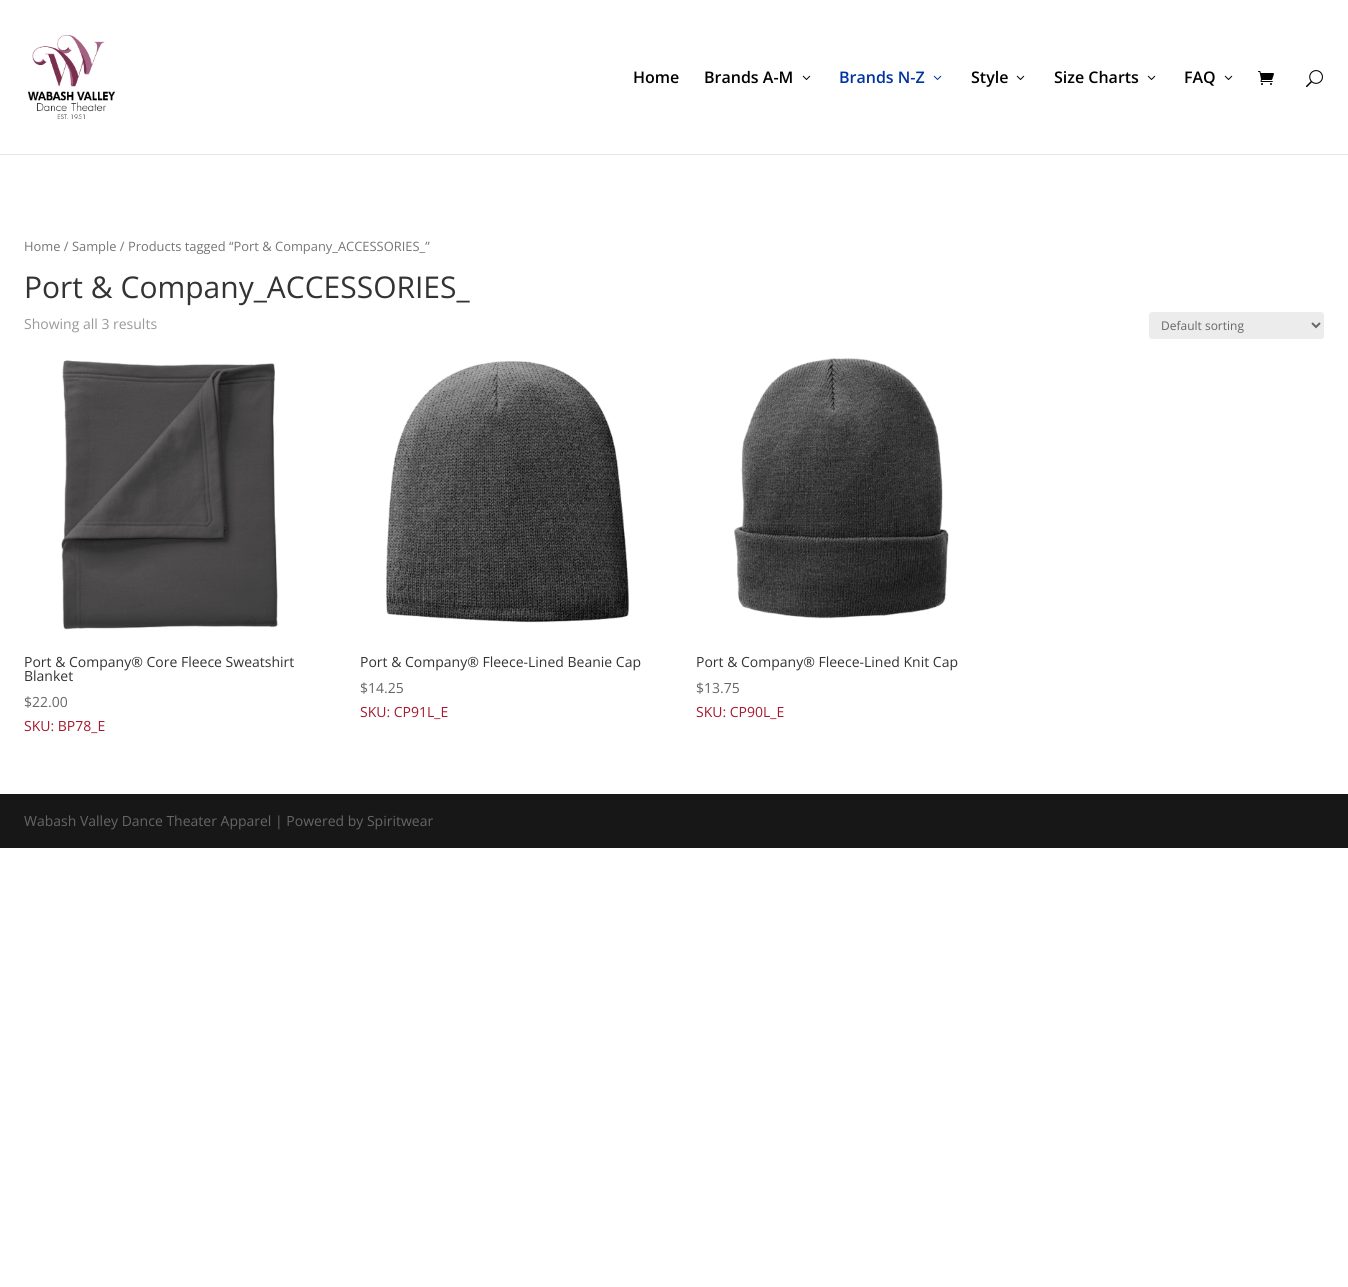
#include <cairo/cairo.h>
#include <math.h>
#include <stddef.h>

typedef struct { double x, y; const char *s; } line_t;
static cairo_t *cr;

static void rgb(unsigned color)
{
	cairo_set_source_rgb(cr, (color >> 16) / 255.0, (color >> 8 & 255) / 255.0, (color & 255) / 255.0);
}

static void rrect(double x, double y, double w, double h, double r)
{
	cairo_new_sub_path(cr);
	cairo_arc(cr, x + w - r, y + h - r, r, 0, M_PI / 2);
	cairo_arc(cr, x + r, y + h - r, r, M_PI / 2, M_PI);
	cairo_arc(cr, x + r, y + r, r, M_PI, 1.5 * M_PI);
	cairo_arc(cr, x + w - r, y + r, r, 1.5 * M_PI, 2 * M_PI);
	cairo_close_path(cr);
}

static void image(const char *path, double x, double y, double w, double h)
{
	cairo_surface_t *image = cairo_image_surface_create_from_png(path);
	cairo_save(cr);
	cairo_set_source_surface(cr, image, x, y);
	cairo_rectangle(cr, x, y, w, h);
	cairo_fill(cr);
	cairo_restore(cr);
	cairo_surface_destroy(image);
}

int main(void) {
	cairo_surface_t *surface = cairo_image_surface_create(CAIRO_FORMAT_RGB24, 1348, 1287);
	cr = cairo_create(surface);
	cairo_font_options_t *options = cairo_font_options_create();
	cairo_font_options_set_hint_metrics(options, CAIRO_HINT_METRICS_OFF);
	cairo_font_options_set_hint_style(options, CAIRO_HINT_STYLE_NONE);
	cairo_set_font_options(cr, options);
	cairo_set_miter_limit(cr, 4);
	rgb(0xffffff);
	cairo_paint(cr);
	rgb(0xe6e6e6);
	cairo_rectangle(cr, 0, 154, 1348, 1);
	cairo_fill(cr);
	image("img/1.png", 28, 35, 87, 84);
	image("img/2.png", 802, 75, 9, 5);
	image("img/3.png", 933, 75, 9, 5);
	image("img/2.png", 1016, 75, 9, 5);
	image("img/2.png", 1147, 75, 9, 5);
	image("img/2.png", 1224, 75, 9, 5);
	image("img/4.png", 1258, 71, 16, 14);
	image("img/5.png", 1306, 70, 17, 18);
	rgb(0xececec);
	rrect(1149, 312, 175, 27, 3);
	cairo_fill(cr);
	cairo_new_path(cr);
	cairo_move_to(cr, 1312, 323);
	cairo_line_to(cr, 1316, 327);
	cairo_line_to(cr, 1320, 323);
	rgb(0x666666);
	cairo_stroke(cr);
	image("img/6.png", 61, 360, 217, 270);
	image("img/7.png", 386, 361, 243, 262);
	image("img/8.png", 734, 358, 215, 261);
	rgb(0x171717);
	cairo_rectangle(cr, 0, 794, 1348, 54);
	cairo_fill(cr);
	cairo_select_font_face(cr, "Open Sans SemiBold", CAIRO_FONT_SLANT_NORMAL, CAIRO_FONT_WEIGHT_NORMAL);
	cairo_set_font_size(cr, 16);
	rgb(0x000000);
	cairo_move_to(cr, 633, 83);
	cairo_show_text(cr, "Home");
	cairo_move_to(cr, 704, 83);
	cairo_show_text(cr, "Brands A-M");
	rgb(0x0032a0);
	cairo_move_to(cr, 839, 83);
	cairo_show_text(cr, "Brands N-Z");
	rgb(0x000000);
	{
		static const line_t items[] = {
			{971, 83, "Style"},
			{1054, 83, "Size Charts"},
			{1184, 83, "FAQ"},
		};
		for (size_t i = 0; i < sizeof items / sizeof *items; i++) {
			cairo_move_to(cr, items[i].x, items[i].y);
			cairo_show_text(cr, items[i].s);
		}
	}
	cairo_select_font_face(cr, "Open Sans", CAIRO_FONT_SLANT_NORMAL, CAIRO_FONT_WEIGHT_NORMAL);
	cairo_set_font_size(cr, 12.9);
	rgb(0x767676);
	cairo_move_to(cr, 24, 251);
	cairo_show_text(cr, "Home / Sample / Products tagged “Port & Company_ACCESSORIES_”");
	cairo_set_font_size(cr, 30);
	rgb(0x333333);
	cairo_move_to(cr, 24, 298);
	cairo_show_text(cr, "Port & Company_ACCESSORIES_");
	cairo_set_font_size(cr, 14);
	rgb(0x999999);
	cairo_move_to(cr, 24, 329);
	cairo_show_text(cr, "Showing all 3 results");
	cairo_set_font_size(cr, 12);
	rgb(0x666666);
	cairo_move_to(cr, 1161, 330);
	cairo_show_text(cr, "Default sorting");
	cairo_set_font_size(cr, 14);
	rgb(0x333333);
	cairo_move_to(cr, 24, 667);
	cairo_show_text(cr, "Port & Company® Core Fleece Sweatshirt");
	cairo_move_to(cr, 24, 681);
	cairo_show_text(cr, "Blanket");
	rgb(0x666666);
	cairo_move_to(cr, 24, 707);
	cairo_show_text(cr, "$22.00");
	rgb(0xa6192e);
	cairo_move_to(cr, 24, 731);
	cairo_show_text(cr, "SKU: BP78_E");
	rgb(0x333333);
	cairo_move_to(cr, 360, 667);
	cairo_show_text(cr, "Port & Company® Fleece-Lined Beanie Cap");
	rgb(0x666666);
	cairo_move_to(cr, 360, 693);
	cairo_show_text(cr, "$14.25");
	rgb(0xa6192e);
	cairo_move_to(cr, 360, 717);
	cairo_show_text(cr, "SKU: CP91L_E");
	rgb(0x333333);
	cairo_move_to(cr, 696, 667);
	cairo_show_text(cr, "Port & Company® Fleece-Lined Knit Cap");
	rgb(0x666666);
	cairo_move_to(cr, 696, 693);
	cairo_show_text(cr, "$13.75");
	rgb(0xa6192e);
	cairo_move_to(cr, 696, 717);
	cairo_show_text(cr, "SKU: CP90L_E");
	rgb(0x666666);
	cairo_move_to(cr, 24, 826);
	cairo_show_text(cr, "Wabash Valley Dance Theater Apparel | Powered by Spiritwear");
	cairo_surface_write_to_png(surface, "page.png");
	cairo_font_options_destroy(options);
	cairo_destroy(cr);
	cairo_surface_destroy(surface);
	return 0;
}
